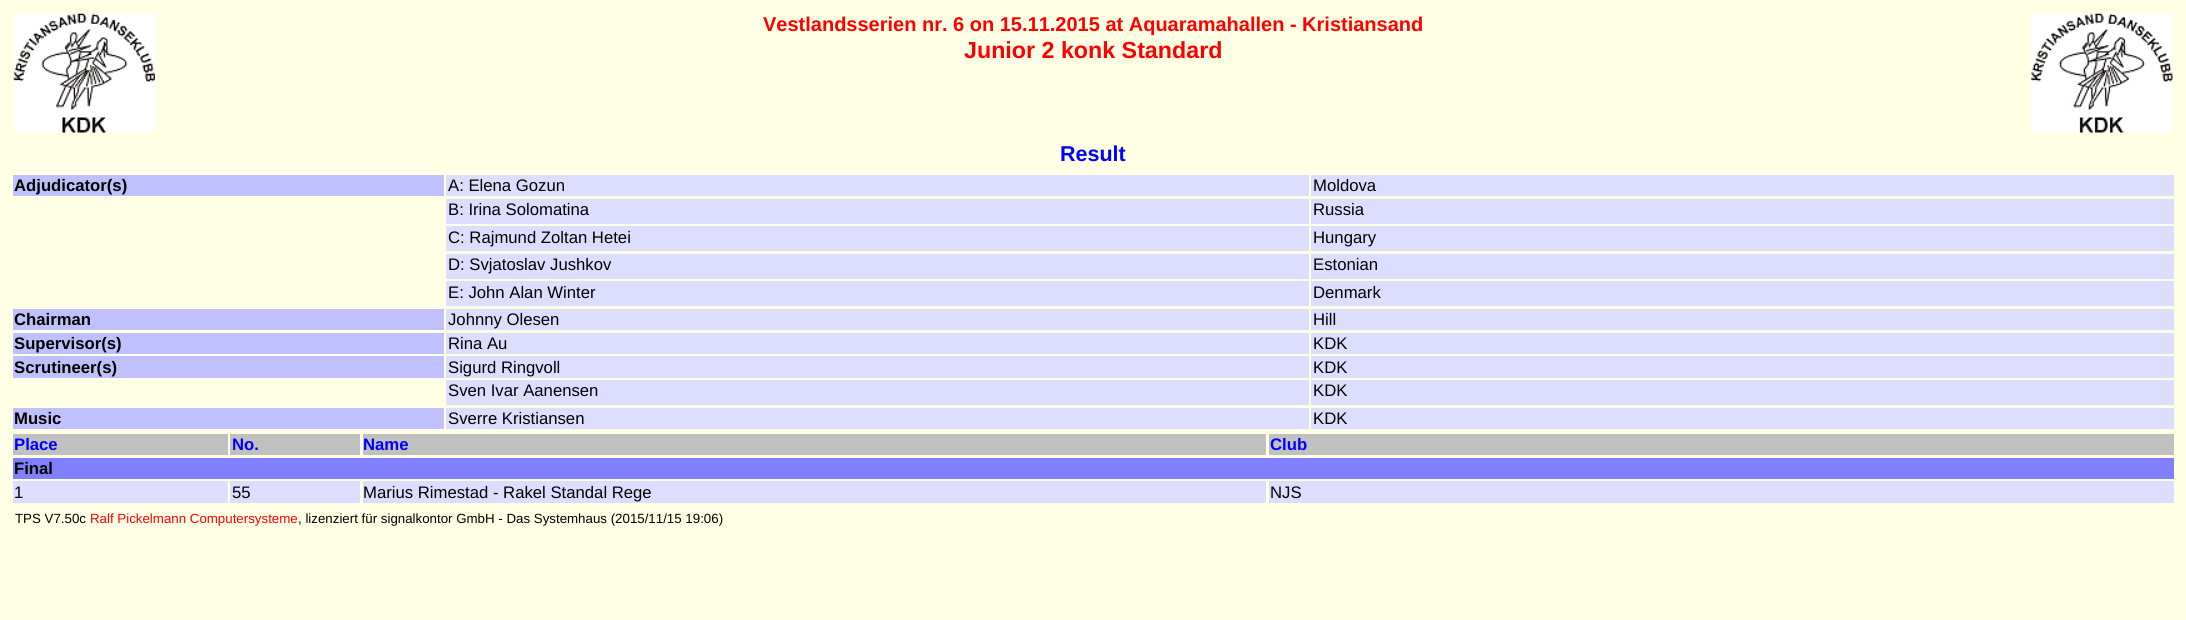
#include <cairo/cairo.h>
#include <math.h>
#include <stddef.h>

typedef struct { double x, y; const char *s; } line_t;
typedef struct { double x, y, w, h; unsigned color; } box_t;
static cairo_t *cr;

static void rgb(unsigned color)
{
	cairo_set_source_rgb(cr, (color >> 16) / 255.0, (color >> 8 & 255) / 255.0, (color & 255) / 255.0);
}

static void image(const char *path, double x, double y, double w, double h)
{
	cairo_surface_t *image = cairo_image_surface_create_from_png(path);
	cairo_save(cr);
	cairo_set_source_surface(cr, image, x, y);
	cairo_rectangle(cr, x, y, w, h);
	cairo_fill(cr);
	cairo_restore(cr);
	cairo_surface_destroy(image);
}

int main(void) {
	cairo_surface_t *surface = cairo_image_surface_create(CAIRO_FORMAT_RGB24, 2186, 620);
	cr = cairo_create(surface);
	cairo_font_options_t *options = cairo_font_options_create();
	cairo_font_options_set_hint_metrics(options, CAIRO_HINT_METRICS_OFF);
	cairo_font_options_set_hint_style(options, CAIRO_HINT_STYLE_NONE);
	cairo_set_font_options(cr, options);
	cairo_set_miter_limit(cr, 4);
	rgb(0xffffe6);
	cairo_paint(cr);
	image("img/1.png", 13, 13, 142, 120);
	image("img/2.png", 2031, 13, 142, 120);
	{
		static const box_t items[] = {
			{13, 175, 431, 21, 0xc0c0ff},
			{446, 175, 863, 21, 0xddddff},
			{1311, 175, 863, 21, 0xddddff},
			{446, 199, 863, 25, 0xddddff},
			{1311, 199, 863, 25, 0xddddff},
			{446, 226, 863, 25, 0xddddff},
			{1311, 226, 863, 25, 0xddddff},
			{446, 254, 863, 25, 0xddddff},
			{1311, 254, 863, 25, 0xddddff},
			{446, 281, 863, 25, 0xddddff},
			{1311, 281, 863, 25, 0xddddff},
			{13, 309, 431, 21, 0xc0c0ff},
			{446, 309, 863, 21, 0xddddff},
			{1311, 309, 863, 21, 0xddddff},
			{13, 333, 431, 21, 0xc0c0ff},
			{446, 333, 863, 21, 0xddddff},
			{1311, 333, 863, 21, 0xddddff},
			{13, 356, 431, 22, 0xc0c0ff},
			{446, 356, 863, 22, 0xddddff},
			{1311, 356, 863, 22, 0xddddff},
			{446, 380, 863, 25, 0xddddff},
			{1311, 380, 863, 25, 0xddddff},
			{13, 408, 431, 21, 0xc0c0ff},
			{446, 408, 863, 21, 0xddddff},
			{1311, 408, 863, 21, 0xddddff},
			{13, 434, 215, 21, 0xc0c0c0},
			{230, 434, 130, 21, 0xc0c0c0},
			{363, 434, 903, 21, 0xc0c0c0},
			{1269, 434, 905, 21, 0xc0c0c0},
			{13, 458, 2161, 21, 0x8080ff},
			{13, 481, 215, 22, 0xddddff},
			{230, 481, 130, 22, 0xddddff},
			{363, 481, 903, 22, 0xddddff},
			{1269, 481, 905, 22, 0xddddff},
		};
		for (size_t i = 0; i < sizeof items / sizeof *items; i++) {
			rgb(items[i].color);
			cairo_rectangle(cr, items[i].x, items[i].y, items[i].w, items[i].h);
			cairo_fill(cr);
		}
	}
	cairo_select_font_face(cr, "Liberation Sans", CAIRO_FONT_SLANT_NORMAL, CAIRO_FONT_WEIGHT_BOLD);
	cairo_set_font_size(cr, 20);
	rgb(0xff0000);
	cairo_move_to(cr, 763, 31);
	cairo_show_text(cr, "Vestlandsserien nr. 6 on 15.11.2015 at Aquaramahallen - Kristiansand");
	cairo_set_font_size(cr, 23.25);
	cairo_move_to(cr, 964, 58);
	cairo_show_text(cr, "Junior 2 konk Standard");
	cairo_set_font_size(cr, 21.5);
	rgb(0x0000ff);
	cairo_move_to(cr, 1060, 161);
	cairo_show_text(cr, "Result");
	cairo_set_font_size(cr, 16.7);
	rgb(0x000000);
	cairo_move_to(cr, 14, 191);
	cairo_show_text(cr, "Adjudicator(s)");
	cairo_select_font_face(cr, "Liberation Sans", CAIRO_FONT_SLANT_NORMAL, CAIRO_FONT_WEIGHT_NORMAL);
	{
		static const line_t items[] = {
			{448, 191, "A: Elena Gozun"},
			{1313, 191, "Moldova"},
			{448, 215, "B: Irina Solomatina"},
			{1313, 215, "Russia"},
			{448, 243, "C: Rajmund Zoltan Hetei"},
			{1313, 243, "Hungary"},
			{448, 270, "D: Svjatoslav Jushkov"},
			{1313, 270, "Estonian"},
			{448, 298, "E: John Alan Winter"},
			{1313, 298, "Denmark"},
		};
		for (size_t i = 0; i < sizeof items / sizeof *items; i++) {
			cairo_move_to(cr, items[i].x, items[i].y);
			cairo_show_text(cr, items[i].s);
		}
	}
	cairo_select_font_face(cr, "Liberation Sans", CAIRO_FONT_SLANT_NORMAL, CAIRO_FONT_WEIGHT_BOLD);
	cairo_move_to(cr, 14, 325);
	cairo_show_text(cr, "Chairman");
	cairo_select_font_face(cr, "Liberation Sans", CAIRO_FONT_SLANT_NORMAL, CAIRO_FONT_WEIGHT_NORMAL);
	cairo_move_to(cr, 448, 325);
	cairo_show_text(cr, "Johnny Olesen");
	cairo_move_to(cr, 1313, 325);
	cairo_show_text(cr, "Hill");
	cairo_select_font_face(cr, "Liberation Sans", CAIRO_FONT_SLANT_NORMAL, CAIRO_FONT_WEIGHT_BOLD);
	cairo_move_to(cr, 14, 349);
	cairo_show_text(cr, "Supervisor(s)");
	cairo_select_font_face(cr, "Liberation Sans", CAIRO_FONT_SLANT_NORMAL, CAIRO_FONT_WEIGHT_NORMAL);
	cairo_move_to(cr, 448, 349);
	cairo_show_text(cr, "Rina Au");
	cairo_move_to(cr, 1313, 349);
	cairo_show_text(cr, "KDK");
	cairo_select_font_face(cr, "Liberation Sans", CAIRO_FONT_SLANT_NORMAL, CAIRO_FONT_WEIGHT_BOLD);
	cairo_move_to(cr, 14, 373);
	cairo_show_text(cr, "Scrutineer(s)");
	cairo_select_font_face(cr, "Liberation Sans", CAIRO_FONT_SLANT_NORMAL, CAIRO_FONT_WEIGHT_NORMAL);
	{
		static const line_t items[] = {
			{448, 373, "Sigurd Ringvoll"},
			{1313, 373, "KDK"},
			{448, 396, "Sven Ivar Aanensen"},
			{1313, 396, "KDK"},
		};
		for (size_t i = 0; i < sizeof items / sizeof *items; i++) {
			cairo_move_to(cr, items[i].x, items[i].y);
			cairo_show_text(cr, items[i].s);
		}
	}
	cairo_select_font_face(cr, "Liberation Sans", CAIRO_FONT_SLANT_NORMAL, CAIRO_FONT_WEIGHT_BOLD);
	cairo_move_to(cr, 14, 424);
	cairo_show_text(cr, "Music");
	cairo_select_font_face(cr, "Liberation Sans", CAIRO_FONT_SLANT_NORMAL, CAIRO_FONT_WEIGHT_NORMAL);
	cairo_move_to(cr, 448, 424);
	cairo_show_text(cr, "Sverre Kristiansen");
	cairo_move_to(cr, 1313, 424);
	cairo_show_text(cr, "KDK");
	cairo_select_font_face(cr, "Liberation Sans", CAIRO_FONT_SLANT_NORMAL, CAIRO_FONT_WEIGHT_BOLD);
	rgb(0x0000ff);
	{
		static const line_t items[] = {
			{14, 450, "Place"},
			{232, 450, "No."},
			{363, 450, "Name"},
			{1270, 450, "Club"},
		};
		for (size_t i = 0; i < sizeof items / sizeof *items; i++) {
			cairo_move_to(cr, items[i].x, items[i].y);
			cairo_show_text(cr, items[i].s);
		}
	}
	rgb(0x000000);
	cairo_move_to(cr, 14, 474);
	cairo_show_text(cr, "Final");
	cairo_select_font_face(cr, "Liberation Sans", CAIRO_FONT_SLANT_NORMAL, CAIRO_FONT_WEIGHT_NORMAL);
	{
		static const line_t items[] = {
			{14, 498, "1"},
			{232, 498, "55"},
			{363, 498, "Marius Rimestad - Rakel Standal Rege"},
			{1270, 498, "NJS"},
		};
		for (size_t i = 0; i < sizeof items / sizeof *items; i++) {
			cairo_move_to(cr, items[i].x, items[i].y);
			cairo_show_text(cr, items[i].s);
		}
	}
	cairo_set_font_size(cr, 13.3);
	cairo_move_to(cr, 15, 523);
	cairo_show_text(cr, "TPS V7.50c");
	rgb(0xff0000);
	cairo_move_to(cr, 90, 523);
	cairo_show_text(cr, "Ralf Pickelmann Computersysteme");
	rgb(0x000000);
	cairo_move_to(cr, 298, 523);
	cairo_show_text(cr, ", lizenziert für signalkontor GmbH - Das Systemhaus (2015/11/15 19:06)");
	cairo_surface_write_to_png(surface, "page.png");
	cairo_font_options_destroy(options);
	cairo_destroy(cr);
	cairo_surface_destroy(surface);
	return 0;
}
